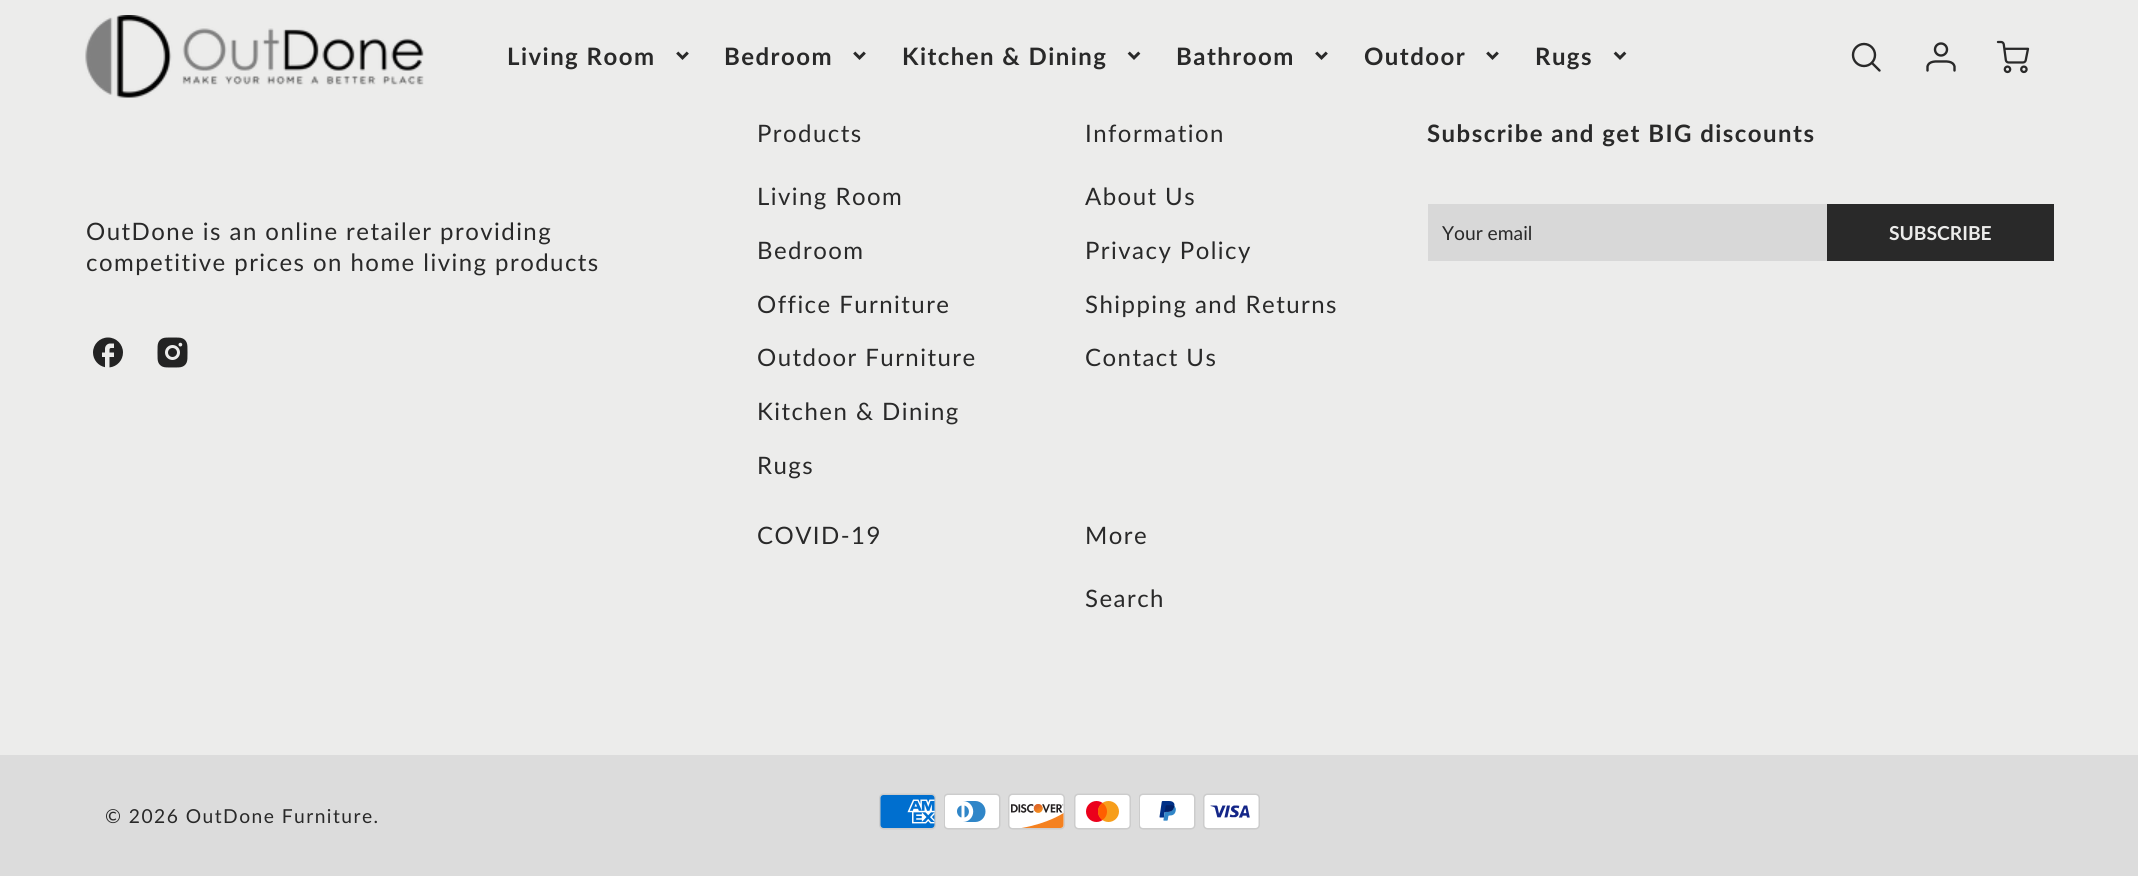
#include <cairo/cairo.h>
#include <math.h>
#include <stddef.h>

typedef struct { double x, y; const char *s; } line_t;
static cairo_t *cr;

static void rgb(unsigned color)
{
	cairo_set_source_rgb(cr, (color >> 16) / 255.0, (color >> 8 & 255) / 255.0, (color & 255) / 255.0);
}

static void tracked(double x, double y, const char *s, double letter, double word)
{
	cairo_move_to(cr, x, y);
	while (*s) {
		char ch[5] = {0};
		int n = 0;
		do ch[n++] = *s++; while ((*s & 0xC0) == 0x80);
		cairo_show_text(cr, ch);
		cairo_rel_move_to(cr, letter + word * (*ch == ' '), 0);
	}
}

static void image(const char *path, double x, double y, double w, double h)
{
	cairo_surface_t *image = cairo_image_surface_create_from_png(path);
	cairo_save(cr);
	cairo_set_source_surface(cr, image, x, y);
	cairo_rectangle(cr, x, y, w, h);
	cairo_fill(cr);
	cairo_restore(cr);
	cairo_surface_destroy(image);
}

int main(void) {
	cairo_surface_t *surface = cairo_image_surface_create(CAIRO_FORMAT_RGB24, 2138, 876);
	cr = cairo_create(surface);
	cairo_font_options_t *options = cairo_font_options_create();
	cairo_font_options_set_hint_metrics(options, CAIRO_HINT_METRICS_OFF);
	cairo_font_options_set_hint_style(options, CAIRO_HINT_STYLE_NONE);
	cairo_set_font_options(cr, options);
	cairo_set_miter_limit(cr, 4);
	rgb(0xececeb);
	cairo_paint(cr);
	image("img/1.png", 85, 15, 339, 83);
	image("img/2.png", 676, 51, 13, 9);
	image("img/2.png", 853, 51, 13, 9);
	image("img/3.png", 1127, 51, 14, 9);
	image("img/2.png", 1315, 51, 13, 9);
	image("img/2.png", 1486, 51, 13, 9);
	image("img/3.png", 1613, 51, 14, 9);
	cairo_arc(cr, 1864, 55, 11, 0, 2 * M_PI);
	rgb(0x292929);
	cairo_set_line_width(cr, 2.4);
	cairo_stroke(cr);
	cairo_new_path(cr);
	cairo_move_to(cr, 1879.5, 70.5);
	cairo_line_to(cr, 1872, 63);
	cairo_set_line_cap(cr, CAIRO_LINE_CAP_ROUND);
	cairo_set_line_join(cr, CAIRO_LINE_JOIN_ROUND);
	cairo_stroke(cr);
	cairo_arc(cr, 1941, 49.5, 6, 0, 2 * M_PI);
	cairo_set_line_cap(cr, CAIRO_LINE_CAP_BUTT);
	cairo_set_line_join(cr, CAIRO_LINE_JOIN_MITER);
	cairo_stroke(cr);
	cairo_new_path(cr);
	cairo_move_to(cr, 1954.5, 70.5);
	cairo_line_to(cr, 1954.5, 66.5);
	cairo_curve_to(cr, 1953, 60.5, 1945.5, 61.5, 1941, 61.5);
	cairo_curve_to(cr, 1936.5, 61.5, 1929, 60.5, 1927.5, 66.5);
	cairo_line_to(cr, 1927.5, 70.5);
	cairo_set_line_cap(cr, CAIRO_LINE_CAP_ROUND);
	cairo_set_line_join(cr, CAIRO_LINE_JOIN_ROUND);
	cairo_stroke(cr);
	image("img/4.png", 1996, 40, 34, 34);
	rgb(0xd8d8d8);
	cairo_rectangle(cr, 1428, 204, 399, 57);
	cairo_fill(cr);
	rgb(0x292929);
	cairo_rectangle(cr, 1827, 204, 227, 57);
	cairo_fill(cr);
	image("img/5.png", 93, 337, 30, 31);
	image("img/6.png", 157, 337, 31, 31);
	rgb(0xdcdcdc);
	cairo_rectangle(cr, 0, 755, 2138, 121);
	cairo_fill(cr);
	image("img/7.png", 879, 793, 57, 37);
	image("img/8.png", 944, 793, 57, 37);
	image("img/9.png", 1008, 793, 57, 37);
	image("img/10.png", 1074, 793, 57, 37);
	image("img/11.png", 1139, 793, 57, 37);
	image("img/12.png", 1203, 793, 57, 37);
	cairo_select_font_face(cr, "Lato", CAIRO_FONT_SLANT_NORMAL, CAIRO_FONT_WEIGHT_BOLD);
	cairo_set_font_size(cr, 24);
	rgb(0x292929);
	{
		static const line_t items[] = {
			{507, 65, "Living Room"},
			{724, 65, "Bedroom"},
			{902, 65, "Kitchen & Dining"},
			{1176, 65, "Bathroom"},
			{1364, 65, "Outdoor"},
			{1535, 65, "Rugs"},
		};
		for (size_t i = 0; i < sizeof items / sizeof *items; i++) {
			tracked(items[i].x, items[i].y, items[i].s, 1.45, 0);
		}
	}
	cairo_select_font_face(cr, "Lato", CAIRO_FONT_SLANT_NORMAL, CAIRO_FONT_WEIGHT_NORMAL);
	{
		static const line_t items[] = {
			{757, 142, "Products"},
			{757, 205, "Living Room"},
			{757, 259, "Bedroom"},
			{757, 313, "Office Furniture"},
			{757, 366, "Outdoor Furniture"},
			{757, 420, "Kitchen & Dining"},
			{757, 474, "Rugs"},
			{1085, 142, "Information"},
			{1085, 205, "About Us"},
			{1085, 259, "Privacy Policy"},
			{1085, 313, "Shipping and Returns"},
			{1085, 366, "Contact Us"},
			{757, 544, "COVID-19"},
			{1085, 544, "More"},
			{1085, 607, "Search"},
		};
		for (size_t i = 0; i < sizeof items / sizeof *items; i++) {
			tracked(items[i].x, items[i].y, items[i].s, 1.45, 0);
		}
	}
	cairo_select_font_face(cr, "Lato", CAIRO_FONT_SLANT_NORMAL, CAIRO_FONT_WEIGHT_BOLD);
	tracked(1427, 142, "Subscribe and get BIG discounts", 1.45, 0);
	cairo_select_font_face(cr, "Lato", CAIRO_FONT_SLANT_NORMAL, CAIRO_FONT_WEIGHT_NORMAL);
	cairo_set_font_size(cr, 19.25);
	cairo_move_to(cr, 1442, 240);
	cairo_show_text(cr, "Your email");
	cairo_select_font_face(cr, "Lato", CAIRO_FONT_SLANT_NORMAL, CAIRO_FONT_WEIGHT_BOLD);
	rgb(0xececeb);
	cairo_move_to(cr, 1889, 240);
	cairo_show_text(cr, "SUBSCRIBE");
	cairo_select_font_face(cr, "Lato", CAIRO_FONT_SLANT_NORMAL, CAIRO_FONT_WEIGHT_NORMAL);
	cairo_set_font_size(cr, 24);
	rgb(0x292929);
	tracked(86, 240, "OutDone is an online retailer providing", 1.45, 0);
	tracked(86, 271, "competitive prices on home living products", 1.45, 0);
	cairo_set_font_size(cr, 19.25);
	tracked(105, 823, "© 2026 OutDone Furniture.", 1.45, 0);
	cairo_surface_write_to_png(surface, "page.png");
	cairo_font_options_destroy(options);
	cairo_destroy(cr);
	cairo_surface_destroy(surface);
	return 0;
}
